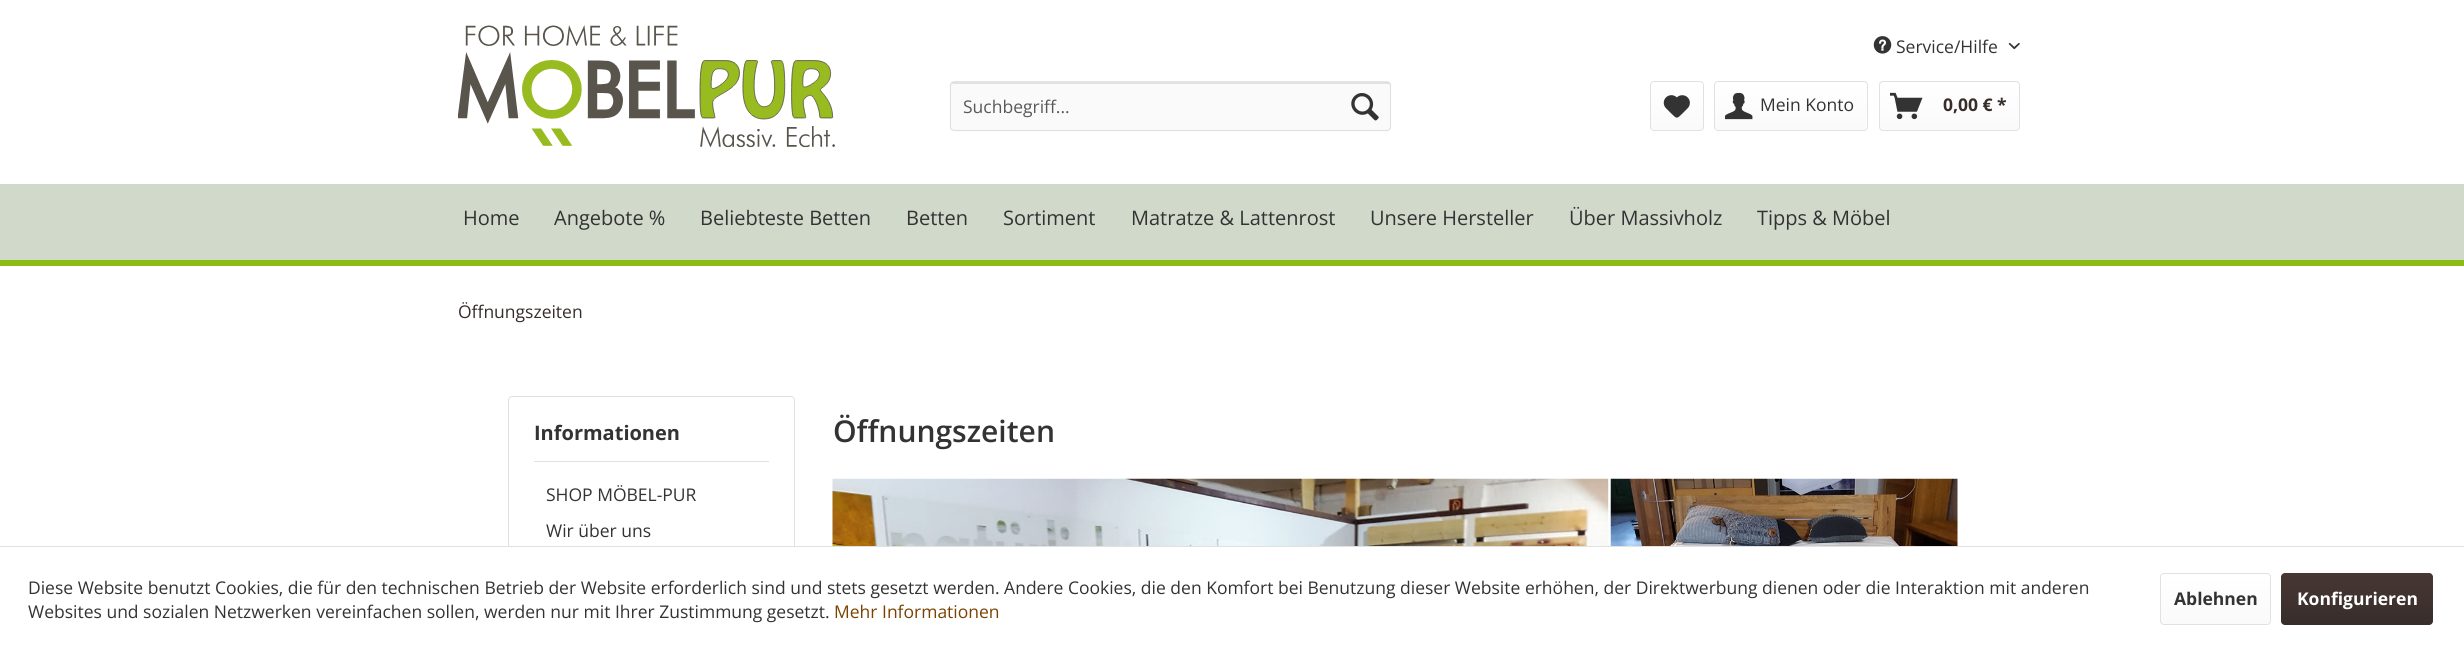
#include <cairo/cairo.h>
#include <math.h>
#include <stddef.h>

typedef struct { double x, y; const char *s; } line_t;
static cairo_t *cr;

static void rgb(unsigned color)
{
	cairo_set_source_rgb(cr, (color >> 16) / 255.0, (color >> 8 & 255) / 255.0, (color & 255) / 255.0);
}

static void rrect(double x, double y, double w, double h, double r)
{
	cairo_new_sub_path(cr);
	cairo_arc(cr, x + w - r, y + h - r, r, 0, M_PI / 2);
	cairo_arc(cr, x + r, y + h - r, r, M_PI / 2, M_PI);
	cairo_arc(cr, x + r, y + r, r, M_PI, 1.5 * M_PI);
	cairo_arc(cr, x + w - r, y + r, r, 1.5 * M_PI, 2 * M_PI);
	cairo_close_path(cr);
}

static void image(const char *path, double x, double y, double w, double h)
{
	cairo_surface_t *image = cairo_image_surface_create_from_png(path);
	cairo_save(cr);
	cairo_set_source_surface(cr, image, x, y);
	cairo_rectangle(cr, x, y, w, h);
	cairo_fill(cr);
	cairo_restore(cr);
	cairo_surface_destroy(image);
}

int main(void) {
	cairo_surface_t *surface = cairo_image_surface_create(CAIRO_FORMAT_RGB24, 2464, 650);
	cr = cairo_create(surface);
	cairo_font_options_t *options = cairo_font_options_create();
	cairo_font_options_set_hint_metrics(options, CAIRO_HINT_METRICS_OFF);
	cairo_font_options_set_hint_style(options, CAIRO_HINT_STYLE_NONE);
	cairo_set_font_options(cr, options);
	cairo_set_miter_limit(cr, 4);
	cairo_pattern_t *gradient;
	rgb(0xffffff);
	cairo_paint(cr);
	image("img/1.png", 1873, 36, 19, 18);
	image("img/2.png", 2008, 42, 12, 8);
	image("img/3.png", 458, 25, 377, 123);
	rgb(0xfafafa);
	rrect(950, 81, 441, 50, 4);
	cairo_fill(cr);
	rgb(0xe1e1e1);
	cairo_new_path(cr);
	cairo_move_to(cr, 954, 84);
	cairo_line_to(cr, 1388, 84);
	cairo_curve_to(cr, 1389, 84, 1390, 85, 1390, 86);
	cairo_curve_to(cr, 1390, 84, 1389, 83, 1388, 83);
	cairo_line_to(cr, 954, 83);
	cairo_line_to(cr, 952, 84);
	cairo_line_to(cr, 951, 86);
	cairo_curve_to(cr, 951, 85, 952, 84, 954, 84);
	cairo_close_path(cr);
	cairo_fill(cr);
	cairo_new_path(cr);
	cairo_move_to(cr, 951.5, 83);
	cairo_line_to(cr, 954, 82);
	cairo_line_to(cr, 1387.5, 82);
	cairo_line_to(cr, 1389.5, 83);
	rgb(0xd4d4d4);
	cairo_set_line_width(cr, 1.2);
	cairo_stroke(cr);
	cairo_new_path(cr);
	cairo_move_to(cr, 1389.5, 83);
	cairo_line_to(cr, 1390.5, 85);
	cairo_line_to(cr, 1390.5, 127.5);
	cairo_line_to(cr, 1389.5, 129.5);
	cairo_line_to(cr, 1387.5, 130.5);
	cairo_line_to(cr, 954, 130.5);
	cairo_line_to(cr, 951.5, 129.5);
	cairo_line_to(cr, 950.5, 127.5);
	cairo_line_to(cr, 950.5, 85);
	cairo_line_to(cr, 951.5, 83);
	rgb(0xe1e1e1);
	cairo_stroke(cr);
	image("img/4.png", 1351, 93, 28, 28);
	gradient = cairo_pattern_create_linear(1677, 83, 1677, 130);
	cairo_pattern_add_color_stop_rgba(gradient, 0, 1, 1, 1, 1);
	cairo_pattern_add_color_stop_rgba(gradient, 1, 0.98, 0.98, 0.98, 1);
	cairo_set_source(cr, gradient);
	cairo_pattern_destroy(gradient);
	rrect(1651, 83, 52, 47, 2.5);
	cairo_fill(cr);
	rrect(1650.5, 81.5, 53, 49, 3.5);
	rgb(0xe1e1e1);
	cairo_set_line_width(cr, 1);
	cairo_stroke(cr);
	image("img/5.png", 1663, 95, 27, 23);
	gradient = cairo_pattern_create_linear(1791, 83, 1791, 130);
	cairo_pattern_add_color_stop_rgba(gradient, 0, 1, 1, 1, 1);
	cairo_pattern_add_color_stop_rgba(gradient, 1, 0.98, 0.98, 0.98, 1);
	cairo_set_source(cr, gradient);
	cairo_pattern_destroy(gradient);
	rrect(1715, 83, 151, 47, 2.5);
	cairo_fill(cr);
	rrect(1714.5, 81.5, 153, 49, 3.5);
	rgb(0xe1e1e1);
	cairo_stroke(cr);
	image("img/6.png", 1725, 92, 28, 28);
	gradient = cairo_pattern_create_linear(1949, 83, 1949, 130);
	cairo_pattern_add_color_stop_rgba(gradient, 0, 1, 1, 1, 1);
	cairo_pattern_add_color_stop_rgba(gradient, 1, 0.98, 0.98, 0.98, 1);
	cairo_set_source(cr, gradient);
	cairo_pattern_destroy(gradient);
	rrect(1880, 83, 139, 47, 2.5);
	cairo_fill(cr);
	rrect(1879.5, 81.5, 140, 49, 3.5);
	rgb(0xe1e1e1);
	cairo_stroke(cr);
	image("img/7.png", 1890, 92, 33, 28);
	rgb(0x8cbb15);
	cairo_rectangle(cr, 0, 260, 2464, 6);
	cairo_fill(cr);
	rgb(0xd0d9ca);
	cairo_rectangle(cr, 0, 184, 2464, 76);
	cairo_fill(cr);
	rrect(508.5, 396.5, 286, 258, 3.5);
	rgb(0xe1e1e1);
	cairo_stroke(cr);
	cairo_rectangle(cr, 534, 461, 235, 1);
	cairo_fill(cr);
	image("img/8.png", 832, 478, 1126, 68);
	rgb(0xffffff);
	cairo_rectangle(cr, 508, 547, 287, 103);
	cairo_fill(cr);
	rgb(0xe1e1e1);
	cairo_rectangle(cr, 0, 546, 2464, 1);
	cairo_fill(cr);
	gradient = cairo_pattern_create_linear(2216, 574, 2216, 624);
	cairo_pattern_add_color_stop_rgba(gradient, 0, 1, 1, 1, 1);
	cairo_pattern_add_color_stop_rgba(gradient, 1, 0.98, 0.98, 0.98, 1);
	cairo_set_source(cr, gradient);
	cairo_pattern_destroy(gradient);
	rrect(2161, 574, 109, 50, 2.5);
	cairo_fill(cr);
	rrect(2160.5, 573.5, 110, 51, 3.5);
	rgb(0xe1e1e1);
	cairo_stroke(cr);
	gradient = cairo_pattern_create_linear(2357, 573, 2357, 625);
	cairo_pattern_add_color_stop_rgba(gradient, 0, 0.282, 0.216, 0.2, 1);
	cairo_pattern_add_color_stop_rgba(gradient, 1, 0.216, 0.176, 0.169, 1);
	cairo_set_source(cr, gradient);
	cairo_pattern_destroy(gradient);
	rrect(2281, 573, 152, 52, 4);
	cairo_fill(cr);
	cairo_select_font_face(cr, "Open Sans", CAIRO_FONT_SLANT_NORMAL, CAIRO_FONT_WEIGHT_NORMAL);
	cairo_set_font_size(cr, 17.5);
	rgb(0x333333);
	cairo_move_to(cr, 1896, 53);
	cairo_show_text(cr, "Service/Hilfe");
	rgb(0x595959);
	cairo_move_to(cr, 963, 113);
	cairo_show_text(cr, "Suchbegriff...");
	rgb(0x333333);
	cairo_move_to(cr, 1760, 111);
	cairo_show_text(cr, "Mein Konto");
	cairo_select_font_face(cr, "Open Sans", CAIRO_FONT_SLANT_NORMAL, CAIRO_FONT_WEIGHT_BOLD);
	rgb(0x372d2b);
	cairo_move_to(cr, 1943, 111);
	cairo_show_text(cr, "0,00 € *");
	cairo_select_font_face(cr, "Open Sans", CAIRO_FONT_SLANT_NORMAL, CAIRO_FONT_WEIGHT_NORMAL);
	cairo_set_font_size(cr, 20);
	rgb(0x333333);
	{
		static const line_t items[] = {
			{463, 225, "Home"},
			{554, 225, "Angebote %"},
			{700, 225, "Beliebteste Betten"},
			{906, 225, "Betten"},
			{1003, 225, "Sortiment"},
			{1131, 225, "Matratze & Lattenrost"},
			{1370, 225, "Unsere Hersteller"},
			{1569, 225, "Über Massivholz"},
			{1757, 225, "Tipps & Möbel"},
		};
		for (size_t i = 0; i < sizeof items / sizeof *items; i++) {
			cairo_move_to(cr, items[i].x, items[i].y);
			cairo_show_text(cr, items[i].s);
		}
	}
	cairo_set_font_size(cr, 17.5);
	rgb(0x372d2b);
	cairo_move_to(cr, 458, 318);
	cairo_show_text(cr, "Öffnungszeiten");
	cairo_select_font_face(cr, "Open Sans", CAIRO_FONT_SLANT_NORMAL, CAIRO_FONT_WEIGHT_BOLD);
	cairo_set_font_size(cr, 20);
	rgb(0x333333);
	cairo_move_to(cr, 534, 440);
	cairo_show_text(cr, "Informationen");
	cairo_select_font_face(cr, "Open Sans", CAIRO_FONT_SLANT_NORMAL, CAIRO_FONT_WEIGHT_NORMAL);
	cairo_set_font_size(cr, 17.5);
	cairo_move_to(cr, 546, 501);
	cairo_show_text(cr, "SHOP MÖBEL-PUR");
	cairo_move_to(cr, 546, 537);
	cairo_show_text(cr, "Wir über uns");
	cairo_select_font_face(cr, "Open Sans SemiBold", CAIRO_FONT_SLANT_NORMAL, CAIRO_FONT_WEIGHT_NORMAL);
	cairo_set_font_size(cr, 30);
	cairo_move_to(cr, 833, 442);
	cairo_show_text(cr, "Öffnungszeiten");
	cairo_select_font_face(cr, "Open Sans", CAIRO_FONT_SLANT_NORMAL, CAIRO_FONT_WEIGHT_NORMAL);
	cairo_set_font_size(cr, 17.5);
	cairo_move_to(cr, 28, 594);
	cairo_show_text(cr, "Diese Website benutzt Cookies, die für den technischen Betrieb der Website erforderlich sind und stets gesetzt werden. Andere Cookies, die den Komfort bei Benutzung dieser Website erhöhen, der Direktwerbung dienen oder die Interaktion mit anderen");
	cairo_move_to(cr, 28, 618);
	cairo_show_text(cr, "Websites und sozialen Netzwerken vereinfachen sollen, werden nur mit Ihrer Zustimmung gesetzt.");
	rgb(0x7a4200);
	cairo_move_to(cr, 834, 618);
	cairo_show_text(cr, "Mehr Informationen");
	cairo_select_font_face(cr, "Open Sans", CAIRO_FONT_SLANT_NORMAL, CAIRO_FONT_WEIGHT_BOLD);
	rgb(0x333333);
	cairo_move_to(cr, 2174, 605);
	cairo_show_text(cr, "Ablehnen");
	rgb(0xffffff);
	cairo_move_to(cr, 2297, 605);
	cairo_show_text(cr, "Konfigurieren");
	cairo_surface_write_to_png(surface, "page.png");
	cairo_font_options_destroy(options);
	cairo_destroy(cr);
	cairo_surface_destroy(surface);
	return 0;
}
